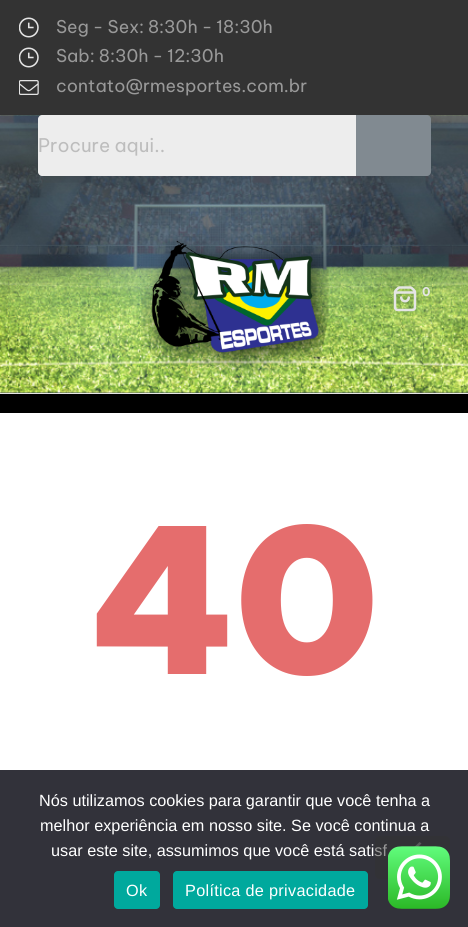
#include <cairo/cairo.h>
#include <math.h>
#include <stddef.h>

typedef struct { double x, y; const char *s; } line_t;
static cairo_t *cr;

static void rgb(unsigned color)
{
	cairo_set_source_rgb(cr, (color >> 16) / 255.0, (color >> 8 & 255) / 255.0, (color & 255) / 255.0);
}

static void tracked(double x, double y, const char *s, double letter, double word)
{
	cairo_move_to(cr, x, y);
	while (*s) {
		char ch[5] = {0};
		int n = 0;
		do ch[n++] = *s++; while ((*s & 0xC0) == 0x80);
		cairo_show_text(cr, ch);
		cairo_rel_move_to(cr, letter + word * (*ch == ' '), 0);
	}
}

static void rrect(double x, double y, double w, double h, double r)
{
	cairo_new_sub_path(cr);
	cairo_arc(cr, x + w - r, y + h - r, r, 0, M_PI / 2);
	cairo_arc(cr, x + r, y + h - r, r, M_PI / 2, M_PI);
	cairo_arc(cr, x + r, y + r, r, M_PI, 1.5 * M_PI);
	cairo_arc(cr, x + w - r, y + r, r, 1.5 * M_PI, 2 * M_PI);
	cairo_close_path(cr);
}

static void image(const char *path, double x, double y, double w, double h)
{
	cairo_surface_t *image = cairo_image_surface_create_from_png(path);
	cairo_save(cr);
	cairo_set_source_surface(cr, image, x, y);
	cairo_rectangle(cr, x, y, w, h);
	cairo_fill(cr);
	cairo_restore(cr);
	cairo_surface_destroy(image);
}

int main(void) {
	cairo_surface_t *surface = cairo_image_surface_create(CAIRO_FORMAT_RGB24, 468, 927);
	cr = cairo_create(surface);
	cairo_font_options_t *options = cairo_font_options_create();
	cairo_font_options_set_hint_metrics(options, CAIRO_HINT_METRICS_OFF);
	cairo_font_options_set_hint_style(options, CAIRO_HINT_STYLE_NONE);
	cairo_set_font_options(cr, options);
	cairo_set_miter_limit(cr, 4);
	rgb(0xffffff);
	cairo_paint(cr);
	rgb(0x333333);
	cairo_rectangle(cr, 0, 0, 468, 115);
	cairo_fill(cr);
	image("img/1.png", 19, 17, 20, 21);
	image("img/1.png", 19, 47, 20, 21);
	image("img/2.png", 19, 80, 20, 15);
	image("img/3.png", 0, 115, 468, 278);
	rgb(0xe5e5e5);
	cairo_rectangle(cr, 0, 393, 468, 1);
	cairo_fill(cr);
	rgb(0xededed);
	cairo_new_path(cr);
	cairo_move_to(cr, 42, 115);
	cairo_line_to(cr, 356, 115);
	cairo_line_to(cr, 356, 176);
	cairo_line_to(cr, 42, 176);
	cairo_curve_to(cr, 40, 176, 38, 174, 38, 172);
	cairo_line_to(cr, 38, 119);
	cairo_curve_to(cr, 38, 117, 40, 115, 42, 115);
	cairo_close_path(cr);
	cairo_fill(cr);
	rgb(0x818a91);
	cairo_new_path(cr);
	cairo_move_to(cr, 356, 115);
	cairo_line_to(cr, 427, 115);
	cairo_curve_to(cr, 429, 115, 431, 117, 431, 119);
	cairo_line_to(cr, 431, 172);
	cairo_curve_to(cr, 431, 174, 429, 176, 427, 176);
	cairo_line_to(cr, 356, 176);
	cairo_close_path(cr);
	cairo_fill(cr);
	image("img/4.png", 141, 236, 188, 142);
	image("img/5.png", 393, 286, 24, 26);
	rgb(0x000000);
	cairo_rectangle(cr, 0, 394, 468, 19);
	cairo_fill(cr);
	rgb(0x32323a);
	cairo_rectangle(cr, 0, 770, 468, 157);
	cairo_fill(cr);
	rgb(0x00a99d);
	rrect(114, 871, 46, 38, 4);
	cairo_fill(cr);
	rrect(173, 871, 195, 38, 4);
	cairo_fill(cr);
	cairo_select_font_face(cr, "Be Vietnam Pro", CAIRO_FONT_SLANT_NORMAL, CAIRO_FONT_WEIGHT_NORMAL);
	cairo_set_font_size(cr, 17.5);
	rgb(0x999999);
	{
		static const line_t items[] = {
			{56, 33, "Seg - Sex: 8:30h - 18:30h"},
			{56, 62, "Sab: 8:30h - 12:30h"},
			{56, 92, "contato@rmesportes.com.br"},
		};
		for (size_t i = 0; i < sizeof items / sizeof *items; i++) {
			cairo_move_to(cr, items[i].x, items[i].y);
			cairo_show_text(cr, items[i].s);
		}
	}
	cairo_set_font_size(cr, 18.75);
	rgb(0xbdbdbd);
	cairo_move_to(cr, 38, 152);
	cairo_show_text(cr, "Procure aqui..");
	cairo_select_font_face(cr, "Be Vietnam Pro", CAIRO_FONT_SLANT_NORMAL, CAIRO_FONT_WEIGHT_BOLD);
	cairo_set_font_size(cr, 12);
	rgb(0xe5e5e5);
	cairo_move_to(cr, 422, 296);
	cairo_show_text(cr, "0");
	cairo_select_font_face(cr, "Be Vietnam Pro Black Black", CAIRO_FONT_SLANT_NORMAL, CAIRO_FONT_WEIGHT_NORMAL);
	cairo_set_font_size(cr, 200);
	rgb(0xe56d6d);
	cairo_move_to(cr, 90, 674);
	cairo_show_text(cr, "40");
	cairo_select_font_face(cr, "Liberation Sans", CAIRO_FONT_SLANT_NORMAL, CAIRO_FONT_WEIGHT_NORMAL);
	cairo_set_font_size(cr, 16.25);
	rgb(0xffffff);
	{
		static const line_t items[] = {
			{39, 806, "Nós utilizamos cookies para garantir que você tenha a"},
			{40, 831, "melhor experiência em nosso site. Se você continua a"},
			{51, 856, "usar este site, assumimos que você está satisf"},
		};
		for (size_t i = 0; i < sizeof items / sizeof *items; i++) {
			cairo_move_to(cr, items[i].x, items[i].y);
			cairo_show_text(cr, items[i].s);
		}
	}
	cairo_set_source_rgba(cr, 0.2, 0.2, 0.2, 0.5);
	rrect(375, 836, 75, 43, 5);
	cairo_fill(cr);
	cairo_set_source_rgba(cr, 0.502, 0.502, 0.502, 0.5);
	cairo_new_path(cr);
	cairo_move_to(cr, 419.5, 842);
	cairo_line_to(cr, 421.5, 843.5);
	cairo_line_to(cr, 408, 857);
	cairo_line_to(cr, 406, 855);
	cairo_close_path(cr);
	cairo_fill(cr);
	rgb(0xffffff);
	tracked(126, 896, "Ok", 0.3, 0);
	tracked(185, 896, "Política de privacidade", 0.3, 0);
	image("img/6.png", 388, 846, 62, 63);
	cairo_surface_write_to_png(surface, "page.png");
	cairo_font_options_destroy(options);
	cairo_destroy(cr);
	cairo_surface_destroy(surface);
	return 0;
}
